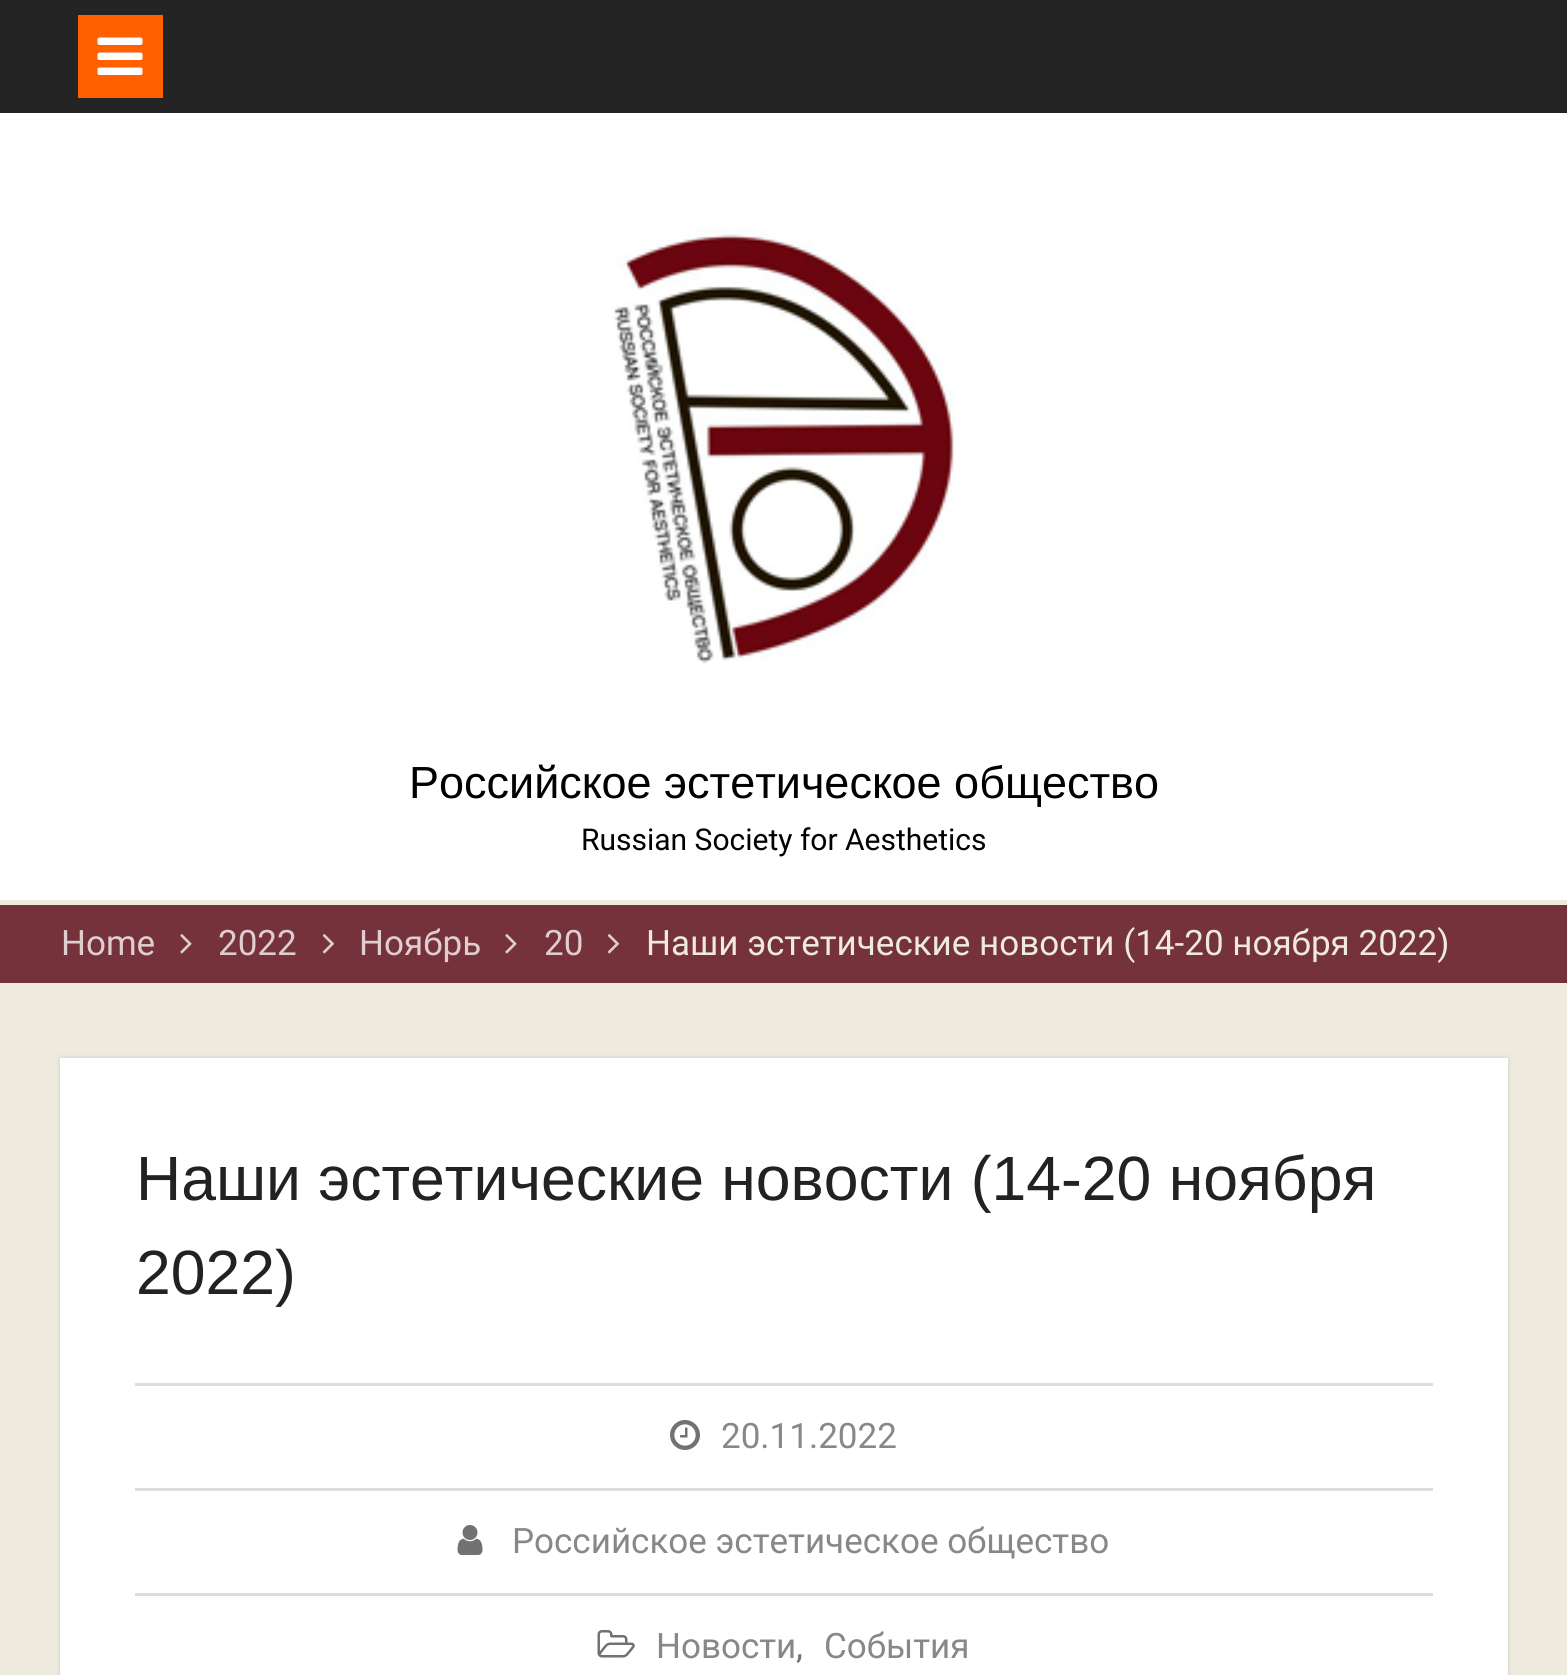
#include <cairo/cairo.h>
#include <math.h>
#include <stddef.h>

typedef struct { double x, y; const char *s; } line_t;
static cairo_t *cr;

static void rgb(unsigned color)
{
	cairo_set_source_rgb(cr, (color >> 16) / 255.0, (color >> 8 & 255) / 255.0, (color & 255) / 255.0);
}

static void rrect(double x, double y, double w, double h, double r)
{
	cairo_new_sub_path(cr);
	cairo_arc(cr, x + w - r, y + h - r, r, 0, M_PI / 2);
	cairo_arc(cr, x + r, y + h - r, r, M_PI / 2, M_PI);
	cairo_arc(cr, x + r, y + r, r, M_PI, 1.5 * M_PI);
	cairo_arc(cr, x + w - r, y + r, r, 1.5 * M_PI, 2 * M_PI);
	cairo_close_path(cr);
}

static void soft_shadow(double x, double y, double w, double h, double r, double blur, double alpha)
{
	cairo_push_group_with_content(cr, CAIRO_CONTENT_ALPHA);
	cairo_set_operator(cr, CAIRO_OPERATOR_SOURCE);
	for (int i = 15; i >= -15 && fmin(w, h) + blur * i / 3 > 0; i -= 2) {
		double e = blur * i / 6;
		cairo_set_source_rgba(cr, 0, 0, 0, alpha * erfc((i - 1) / 8.5) / 2);
		rrect(x - e, y - e, w + 2 * e, h + 2 * e, fmax(0, fmin(r + e + blur * .6, fmin(w, h) / 2 + e)));
		cairo_fill(cr);
	}
	cairo_pattern_t *soft = cairo_pop_group(cr);
	cairo_mask(cr, soft);
	cairo_pattern_destroy(soft);
}

static void image(const char *path, double x, double y, double w, double h)
{
	cairo_surface_t *image = cairo_image_surface_create_from_png(path);
	cairo_save(cr);
	cairo_set_source_surface(cr, image, x, y);
	cairo_rectangle(cr, x, y, w, h);
	cairo_fill(cr);
	cairo_restore(cr);
	cairo_surface_destroy(image);
}

int main(void) {
	cairo_surface_t *surface = cairo_image_surface_create(CAIRO_FORMAT_RGB24, 1567, 1675);
	cr = cairo_create(surface);
	cairo_font_options_t *options = cairo_font_options_create();
	cairo_font_options_set_hint_metrics(options, CAIRO_HINT_METRICS_OFF);
	cairo_font_options_set_hint_style(options, CAIRO_HINT_STYLE_NONE);
	cairo_set_font_options(cr, options);
	cairo_set_miter_limit(cr, 4);
	rgb(0xeeeade);
	cairo_paint(cr);
	rgb(0x242424);
	cairo_rectangle(cr, 0, 0, 1567, 113);
	cairo_fill(cr);
	rgb(0xff6000);
	cairo_rectangle(cr, 78, 15, 85, 83);
	cairo_fill(cr);
	image("img/1.png", 97, 37, 46, 38);
	rgb(0xffffff);
	cairo_rectangle(cr, 0, 113, 1567, 787);
	cairo_fill(cr);
	image("img/2.png", 614, 228, 341, 436);
	rgb(0x75323b);
	cairo_rectangle(cr, 0, 905, 1567, 78);
	cairo_fill(cr);
	image("img/3.png", 180, 934, 12, 20);
	image("img/4.png", 322, 934, 13, 20);
	image("img/3.png", 505, 934, 12, 20);
	image("img/4.png", 607, 934, 13, 20);
	rgb(0xcfcfcf);
	soft_shadow(60, 1058, 1448, 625, 0, 2.5, 1);
	rgb(0xffffff);
	cairo_rectangle(cr, 60, 1058, 1448, 617);
	cairo_fill(cr);
	rgb(0xdddddd);
	cairo_rectangle(cr, 135, 1383, 1298, 3);
	cairo_fill(cr);
	image("img/5.png", 670, 1420, 30, 30);
	cairo_rectangle(cr, 135, 1488, 1298, 3);
	cairo_fill(cr);
	image("img/6.png", 457, 1525, 26, 30);
	cairo_rectangle(cr, 135, 1593, 1298, 3);
	cairo_fill(cr);
	image("img/7.png", 597, 1630, 38, 28);
	cairo_select_font_face(cr, "Liberation Sans", CAIRO_FONT_SLANT_NORMAL, CAIRO_FONT_WEIGHT_NORMAL);
	cairo_set_font_size(cr, 45);
	rgb(0x000000);
	cairo_move_to(cr, 409, 798);
	cairo_show_text(cr, "Российское эстетическое общество");
	cairo_select_font_face(cr, "Roboto", CAIRO_FONT_SLANT_NORMAL, CAIRO_FONT_WEIGHT_NORMAL);
	cairo_set_font_size(cr, 30);
	cairo_move_to(cr, 581, 850);
	cairo_show_text(cr, "Russian Society for Aesthetics");
	cairo_set_font_size(cr, 35);
	rgb(0xdeced0);
	{
		static const line_t items[] = {
			{61, 955, "Home"},
			{218, 955, "2022"},
			{359, 955, "Ноябрь"},
			{544, 955, "20"},
		};
		for (size_t i = 0; i < sizeof items / sizeof *items; i++) {
			cairo_move_to(cr, items[i].x, items[i].y);
			cairo_show_text(cr, items[i].s);
		}
	}
	rgb(0xeeeade);
	cairo_move_to(cr, 646, 955);
	cairo_show_text(cr, "Наши эстетические новости (14-20 ноября 2022)");
	cairo_select_font_face(cr, "Liberation Sans", CAIRO_FONT_SLANT_NORMAL, CAIRO_FONT_WEIGHT_NORMAL);
	cairo_set_font_size(cr, 62.5);
	rgb(0x222222);
	cairo_move_to(cr, 136, 1200);
	cairo_show_text(cr, "Наши эстетические новости (14-20 ноября");
	cairo_move_to(cr, 136, 1294);
	cairo_show_text(cr, "2022)");
	cairo_select_font_face(cr, "Roboto", CAIRO_FONT_SLANT_NORMAL, CAIRO_FONT_WEIGHT_NORMAL);
	cairo_set_font_size(cr, 35);
	rgb(0x888888);
	{
		static const line_t items[] = {
			{721, 1448, "20.11.2022"},
			{512, 1553, "Российское эстетическое общество"},
			{656, 1658, "Новости"},
		};
		for (size_t i = 0; i < sizeof items / sizeof *items; i++) {
			cairo_move_to(cr, items[i].x, items[i].y);
			cairo_show_text(cr, items[i].s);
		}
	}
	rgb(0x727272);
	cairo_move_to(cr, 796, 1658);
	cairo_show_text(cr, ",");
	rgb(0x888888);
	cairo_move_to(cr, 824, 1658);
	cairo_show_text(cr, "События");
	cairo_surface_write_to_png(surface, "page.png");
	cairo_font_options_destroy(options);
	cairo_destroy(cr);
	cairo_surface_destroy(surface);
	return 0;
}
